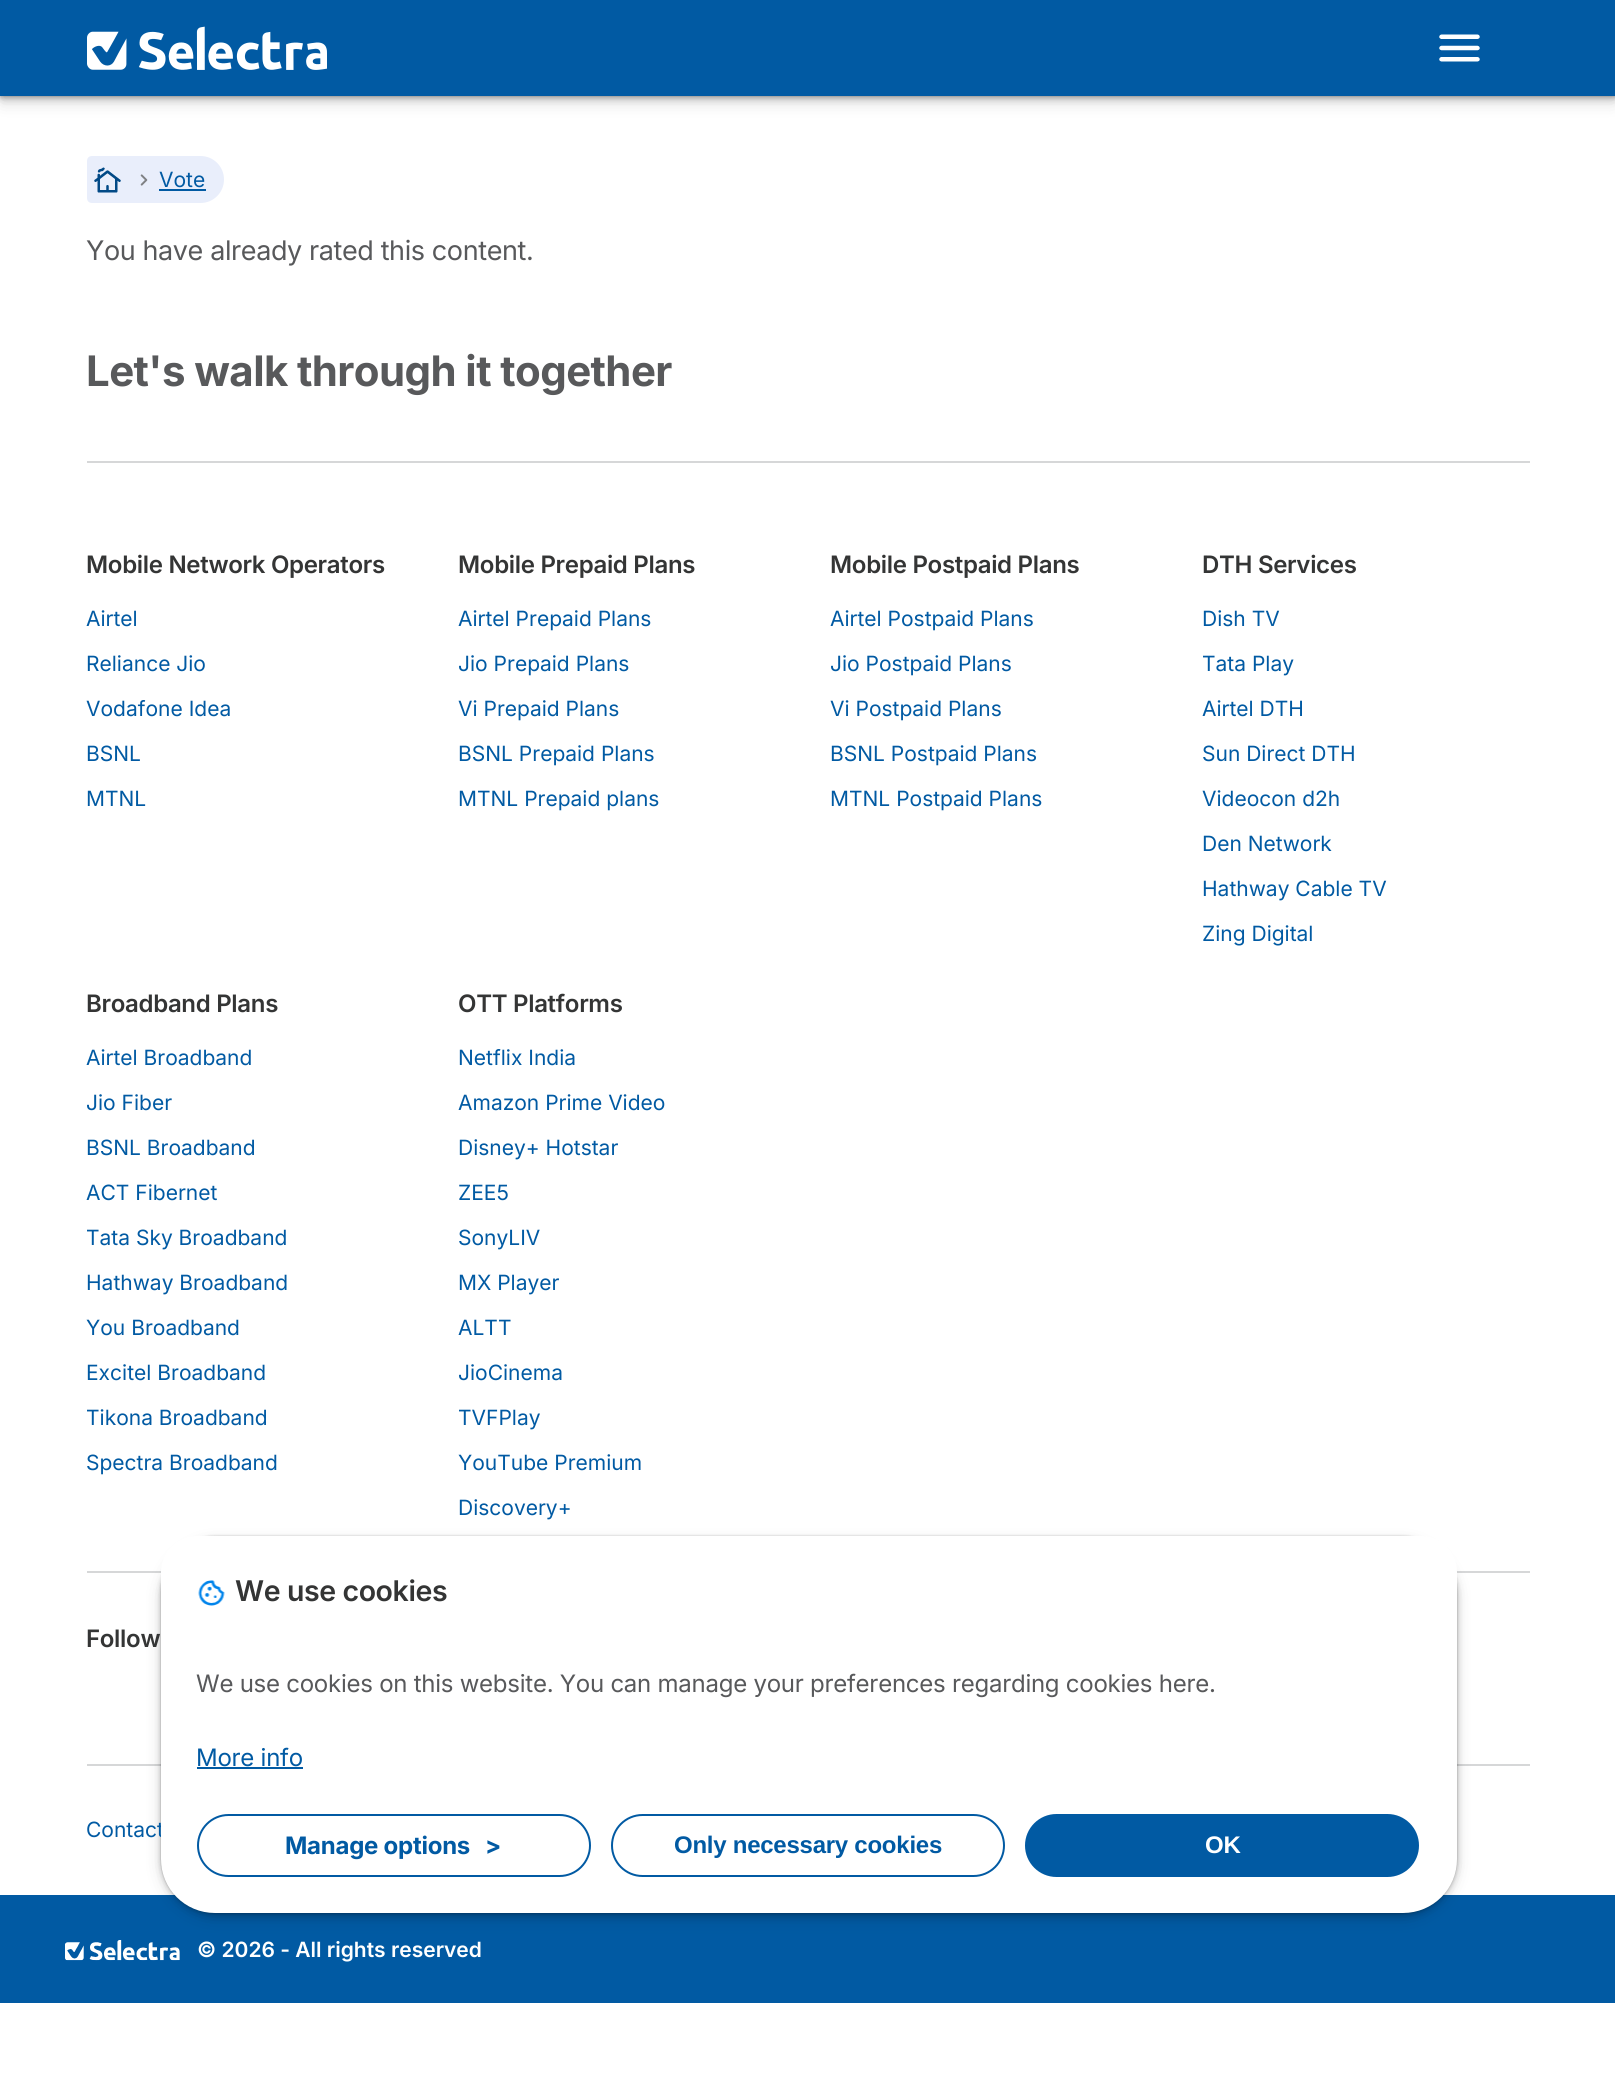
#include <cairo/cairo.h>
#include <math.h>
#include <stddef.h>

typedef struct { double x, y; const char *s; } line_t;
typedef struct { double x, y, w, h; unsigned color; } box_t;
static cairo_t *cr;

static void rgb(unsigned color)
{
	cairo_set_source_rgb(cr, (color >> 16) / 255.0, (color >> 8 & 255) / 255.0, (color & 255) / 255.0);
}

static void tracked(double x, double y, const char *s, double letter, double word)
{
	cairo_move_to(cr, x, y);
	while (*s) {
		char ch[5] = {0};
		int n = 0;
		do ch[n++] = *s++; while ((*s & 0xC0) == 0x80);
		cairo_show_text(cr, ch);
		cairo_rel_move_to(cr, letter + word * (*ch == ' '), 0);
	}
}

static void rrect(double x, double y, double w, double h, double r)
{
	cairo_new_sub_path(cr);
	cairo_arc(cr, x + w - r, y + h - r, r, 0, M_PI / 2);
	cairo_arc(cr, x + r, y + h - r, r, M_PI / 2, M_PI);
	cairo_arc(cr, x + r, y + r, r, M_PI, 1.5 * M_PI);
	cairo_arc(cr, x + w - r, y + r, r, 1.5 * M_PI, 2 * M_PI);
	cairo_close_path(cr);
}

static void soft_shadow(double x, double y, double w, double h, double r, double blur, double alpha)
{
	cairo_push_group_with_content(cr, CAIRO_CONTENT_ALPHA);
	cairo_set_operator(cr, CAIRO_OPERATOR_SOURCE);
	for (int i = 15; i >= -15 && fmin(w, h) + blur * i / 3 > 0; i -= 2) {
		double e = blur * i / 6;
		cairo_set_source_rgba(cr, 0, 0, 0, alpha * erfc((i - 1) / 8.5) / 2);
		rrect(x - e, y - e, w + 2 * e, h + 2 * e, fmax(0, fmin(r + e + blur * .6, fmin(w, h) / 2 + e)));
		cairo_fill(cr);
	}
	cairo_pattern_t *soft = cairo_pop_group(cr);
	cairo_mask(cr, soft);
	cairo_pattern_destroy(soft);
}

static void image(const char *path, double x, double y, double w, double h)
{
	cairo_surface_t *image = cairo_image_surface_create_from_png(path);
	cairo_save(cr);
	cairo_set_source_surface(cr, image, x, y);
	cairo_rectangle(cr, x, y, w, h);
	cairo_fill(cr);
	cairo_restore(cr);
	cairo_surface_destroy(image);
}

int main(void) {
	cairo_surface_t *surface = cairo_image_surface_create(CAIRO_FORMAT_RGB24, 1615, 2074);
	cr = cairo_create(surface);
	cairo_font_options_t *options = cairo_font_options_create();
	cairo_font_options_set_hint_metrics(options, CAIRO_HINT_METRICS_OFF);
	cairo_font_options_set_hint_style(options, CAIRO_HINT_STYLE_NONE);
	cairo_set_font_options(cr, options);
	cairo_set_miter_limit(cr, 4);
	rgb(0xffffff);
	cairo_paint(cr);
	rgb(0x000000);
	soft_shadow(0, 0, 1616, 96, 0, 1, 0.17);
	soft_shadow(0, 2, 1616, 96, 0, 2, 0.16);
	soft_shadow(2, 5, 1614, 94, 0, 4.5, 0.16);
	soft_shadow(2, 8, 1612, 93, 0, 9, 0.15);
	rgb(0x015aa3);
	cairo_rectangle(cr, 0, 0, 1615, 96);
	cairo_fill(cr);
	image("img/1.png", 87, 26, 240, 44);
	image("img/2.png", 1439, 34, 41, 28);
	rgb(0xe9eefb);
	cairo_new_path(cr);
	cairo_move_to(cr, 92, 156);
	cairo_line_to(cr, 200.5, 156);
	cairo_curve_to(cr, 213.5, 156, 224, 166.5, 224, 179.5);
	cairo_curve_to(cr, 224, 192.5, 213.5, 203, 200.5, 203);
	cairo_line_to(cr, 92, 203);
	cairo_curve_to(cr, 89, 203, 87, 201, 87, 198);
	cairo_line_to(cr, 87, 161);
	cairo_curve_to(cr, 87, 158, 89, 156, 92, 156);
	cairo_close_path(cr);
	cairo_fill(cr);
	image("img/3.png", 94, 167, 27, 26);
	image("img/4.png", 140, 174, 8, 12);
	{
		static const box_t items[] = {
			{159, 189, 47, 2, 0x015aa3},
			{87, 461, 1443, 2, 0xd6d7d8},
			{87, 1571, 1443, 2, 0xd6d7d8},
			{87, 1764, 1443, 2, 0xd6d7d8},
			{0, 1895, 1615, 108, 0x015aa3},
		};
		for (size_t i = 0; i < sizeof items / sizeof *items; i++) {
			rgb(items[i].color);
			cairo_rectangle(cr, items[i].x, items[i].y, items[i].w, items[i].h);
			cairo_fill(cr);
		}
	}
	image("img/5.png", 65, 1940, 115, 21);
	rgb(0x000000);
	soft_shadow(162, 1544, 1293, 373, 53, 9, 0.14);
	soft_shadow(162, 1541, 1295, 375, 54, 4.5, 0.16);
	soft_shadow(161, 1538, 1296, 376, 54, 2, 0.16);
	soft_shadow(161, 1536, 1296, 377, 54, 1, 0.17);
	cairo_select_font_face(cr, "Inter", CAIRO_FONT_SLANT_NORMAL, CAIRO_FONT_WEIGHT_NORMAL);
	cairo_set_font_size(cr, 21);
	rgb(0x015aa3);
	cairo_move_to(cr, 159, 187);
	cairo_show_text(cr, "Vote");
	cairo_set_font_size(cr, 27);
	rgb(0x58595b);
	tracked(86, 260, "You have already rated this content.", -0.4, 0);
	cairo_select_font_face(cr, "Inter", CAIRO_FONT_SLANT_NORMAL, CAIRO_FONT_WEIGHT_BOLD);
	cairo_set_font_size(cr, 42);
	tracked(86, 386, "Let's walk through it together", -0.6, 0);
	cairo_select_font_face(cr, "Inter SemiBold", CAIRO_FONT_SLANT_NORMAL, CAIRO_FONT_WEIGHT_NORMAL);
	cairo_set_font_size(cr, 24);
	rgb(0x343535);
	tracked(86, 573, "Mobile Network Operators", -0.3, 0);
	cairo_select_font_face(cr, "Inter", CAIRO_FONT_SLANT_NORMAL, CAIRO_FONT_WEIGHT_NORMAL);
	cairo_set_font_size(cr, 21);
	rgb(0x015aa3);
	{
		static const line_t items[] = {
			{86, 626, "Airtel"},
			{86, 671, "Reliance Jio"},
			{86, 716, "Vodafone Idea"},
			{86, 761, "BSNL"},
			{86, 806, "MTNL"},
		};
		for (size_t i = 0; i < sizeof items / sizeof *items; i++) {
			cairo_move_to(cr, items[i].x, items[i].y);
			cairo_show_text(cr, items[i].s);
		}
	}
	cairo_select_font_face(cr, "Inter SemiBold", CAIRO_FONT_SLANT_NORMAL, CAIRO_FONT_WEIGHT_NORMAL);
	cairo_set_font_size(cr, 24);
	rgb(0x343535);
	tracked(458, 573, "Mobile Prepaid Plans", -0.3, 0);
	cairo_select_font_face(cr, "Inter", CAIRO_FONT_SLANT_NORMAL, CAIRO_FONT_WEIGHT_NORMAL);
	cairo_set_font_size(cr, 21);
	rgb(0x015aa3);
	{
		static const line_t items[] = {
			{458, 626, "Airtel Prepaid Plans"},
			{458, 671, "Jio Prepaid Plans"},
			{458, 716, "Vi Prepaid Plans"},
			{458, 761, "BSNL Prepaid Plans"},
			{458, 806, "MTNL Prepaid plans"},
		};
		for (size_t i = 0; i < sizeof items / sizeof *items; i++) {
			cairo_move_to(cr, items[i].x, items[i].y);
			cairo_show_text(cr, items[i].s);
		}
	}
	cairo_select_font_face(cr, "Inter SemiBold", CAIRO_FONT_SLANT_NORMAL, CAIRO_FONT_WEIGHT_NORMAL);
	cairo_set_font_size(cr, 24);
	rgb(0x343535);
	tracked(830, 573, "Mobile Postpaid Plans", -0.3, 0);
	cairo_select_font_face(cr, "Inter", CAIRO_FONT_SLANT_NORMAL, CAIRO_FONT_WEIGHT_NORMAL);
	cairo_set_font_size(cr, 21);
	rgb(0x015aa3);
	{
		static const line_t items[] = {
			{830, 626, "Airtel Postpaid Plans"},
			{830, 671, "Jio Postpaid Plans"},
			{830, 716, "Vi Postpaid Plans"},
			{830, 761, "BSNL Postpaid Plans"},
			{830, 806, "MTNL Postpaid Plans"},
		};
		for (size_t i = 0; i < sizeof items / sizeof *items; i++) {
			cairo_move_to(cr, items[i].x, items[i].y);
			cairo_show_text(cr, items[i].s);
		}
	}
	cairo_select_font_face(cr, "Inter SemiBold", CAIRO_FONT_SLANT_NORMAL, CAIRO_FONT_WEIGHT_NORMAL);
	cairo_set_font_size(cr, 24);
	rgb(0x343535);
	tracked(1202, 573, "DTH Services", -0.3, 0);
	cairo_select_font_face(cr, "Inter", CAIRO_FONT_SLANT_NORMAL, CAIRO_FONT_WEIGHT_NORMAL);
	cairo_set_font_size(cr, 21);
	rgb(0x015aa3);
	{
		static const line_t items[] = {
			{1202, 626, "Dish TV"},
			{1202, 671, "Tata Play"},
			{1202, 716, "Airtel DTH"},
			{1202, 761, "Sun Direct DTH"},
			{1202, 806, "Videocon d2h"},
			{1202, 851, "Den Network"},
			{1202, 896, "Hathway Cable TV"},
			{1202, 941, "Zing Digital"},
		};
		for (size_t i = 0; i < sizeof items / sizeof *items; i++) {
			cairo_move_to(cr, items[i].x, items[i].y);
			cairo_show_text(cr, items[i].s);
		}
	}
	cairo_select_font_face(cr, "Inter SemiBold", CAIRO_FONT_SLANT_NORMAL, CAIRO_FONT_WEIGHT_NORMAL);
	cairo_set_font_size(cr, 24);
	rgb(0x343535);
	tracked(86, 1012, "Broadband Plans", -0.3, 0);
	cairo_select_font_face(cr, "Inter", CAIRO_FONT_SLANT_NORMAL, CAIRO_FONT_WEIGHT_NORMAL);
	cairo_set_font_size(cr, 21);
	rgb(0x015aa3);
	{
		static const line_t items[] = {
			{86, 1065, "Airtel Broadband"},
			{86, 1110, "Jio Fiber"},
			{86, 1155, "BSNL Broadband"},
			{86, 1200, "ACT Fibernet"},
			{86, 1245, "Tata Sky Broadband"},
			{86, 1290, "Hathway Broadband"},
			{86, 1335, "You Broadband"},
			{86, 1380, "Excitel Broadband"},
			{86, 1425, "Tikona Broadband"},
			{86, 1470, "Spectra Broadband"},
		};
		for (size_t i = 0; i < sizeof items / sizeof *items; i++) {
			cairo_move_to(cr, items[i].x, items[i].y);
			cairo_show_text(cr, items[i].s);
		}
	}
	cairo_select_font_face(cr, "Inter SemiBold", CAIRO_FONT_SLANT_NORMAL, CAIRO_FONT_WEIGHT_NORMAL);
	cairo_set_font_size(cr, 24);
	rgb(0x343535);
	tracked(458, 1012, "OTT Platforms", -0.3, 0);
	cairo_select_font_face(cr, "Inter", CAIRO_FONT_SLANT_NORMAL, CAIRO_FONT_WEIGHT_NORMAL);
	cairo_set_font_size(cr, 21);
	rgb(0x015aa3);
	{
		static const line_t items[] = {
			{458, 1065, "Netflix India"},
			{458, 1110, "Amazon Prime Video"},
			{458, 1155, "Disney+ Hotstar"},
			{458, 1200, "ZEE5"},
			{458, 1245, "SonyLIV"},
			{458, 1290, "MX Player"},
			{458, 1335, "ALTT"},
			{458, 1380, "JioCinema"},
			{458, 1425, "TVFPlay"},
			{458, 1470, "YouTube Premium"},
			{458, 1515, "Discovery+"},
		};
		for (size_t i = 0; i < sizeof items / sizeof *items; i++) {
			cairo_move_to(cr, items[i].x, items[i].y);
			cairo_show_text(cr, items[i].s);
		}
	}
	cairo_select_font_face(cr, "Inter SemiBold", CAIRO_FONT_SLANT_NORMAL, CAIRO_FONT_WEIGHT_NORMAL);
	cairo_set_font_size(cr, 24);
	rgb(0x343535);
	tracked(86, 1647, "Follow", -0.3, 0);
	cairo_select_font_face(cr, "Inter", CAIRO_FONT_SLANT_NORMAL, CAIRO_FONT_WEIGHT_NORMAL);
	cairo_set_font_size(cr, 21);
	rgb(0x015aa3);
	cairo_move_to(cr, 86, 1837);
	cairo_show_text(cr, "Contact");
	cairo_select_font_face(cr, "Inter SemiBold", CAIRO_FONT_SLANT_NORMAL, CAIRO_FONT_WEIGHT_NORMAL);
	rgb(0xffffff);
	cairo_move_to(cr, 197, 1957);
	cairo_show_text(cr, "© 2026 - All rights reserved");
	cairo_new_path(cr);
	cairo_move_to(cr, 197, 1536);
	cairo_line_to(cr, 1421, 1536);
	cairo_curve_to(cr, 1441, 1536, 1457, 1552, 1457, 1572);
	cairo_line_to(cr, 1457, 1859);
	cairo_curve_to(cr, 1457, 1889, 1433, 1913, 1403, 1913);
	cairo_line_to(cr, 215, 1913);
	cairo_curve_to(cr, 185, 1913, 161, 1889, 161, 1859);
	cairo_line_to(cr, 161, 1572);
	cairo_curve_to(cr, 161, 1552, 177, 1536, 197, 1536);
	cairo_close_path(cr);
	cairo_fill(cr);
	image("img/6.png", 198, 1580, 27, 26);
	cairo_set_font_size(cr, 28.5);
	rgb(0x343535);
	tracked(235, 1601, "We use cookies", -0.4, 0);
	cairo_select_font_face(cr, "Inter", CAIRO_FONT_SLANT_NORMAL, CAIRO_FONT_WEIGHT_NORMAL);
	cairo_set_font_size(cr, 24);
	rgb(0x58595b);
	tracked(196, 1692, "We use cookies on this website. You can manage your preferences regarding cookies here.", -0.25, 0);
	rgb(0x015aa3);
	tracked(196, 1766, "More info", -0.25, 0);
	cairo_rectangle(cr, 197, 1767, 106, 2);
	cairo_fill(cr);
	rrect(198, 1815, 392, 61, 30.5);
	cairo_stroke(cr);
	cairo_select_font_face(cr, "Inter", CAIRO_FONT_SLANT_NORMAL, CAIRO_FONT_WEIGHT_BOLD);
	tracked(285, 1854, "Manage options", -0.25, 0);
	tracked(485, 1854, ">", -0.25, 0);
	rrect(612, 1815, 392, 61, 30.5);
	cairo_stroke(cr);
	cairo_select_font_face(cr, "Liberation Sans", CAIRO_FONT_SLANT_NORMAL, CAIRO_FONT_WEIGHT_BOLD);
	tracked(674, 1853, "Only necessary cookies", -0.25, 0);
	rrect(1026, 1815, 392, 61, 30.5);
	cairo_fill_preserve(cr);
	cairo_stroke(cr);
	rgb(0xffffff);
	tracked(1205, 1853, "OK", -0.25, 0);
	cairo_surface_write_to_png(surface, "page.png");
	cairo_font_options_destroy(options);
	cairo_destroy(cr);
	cairo_surface_destroy(surface);
	return 0;
}
